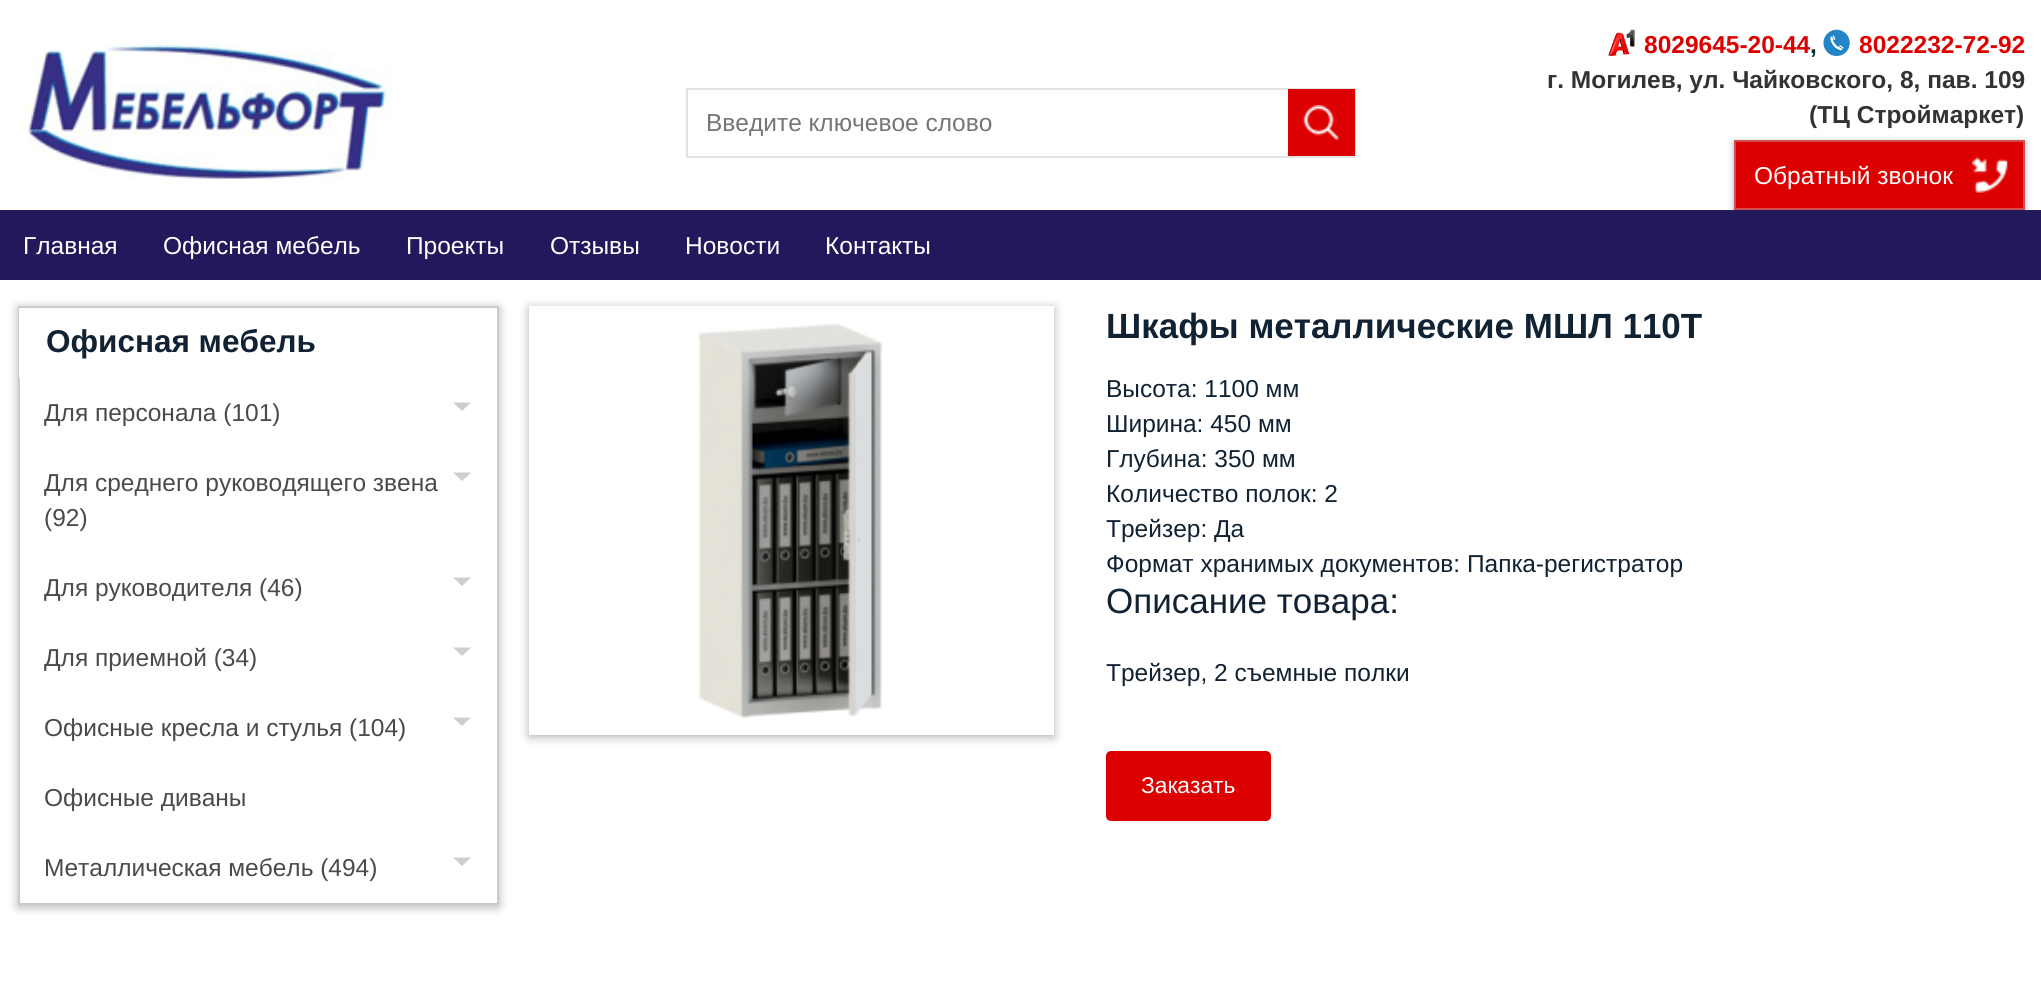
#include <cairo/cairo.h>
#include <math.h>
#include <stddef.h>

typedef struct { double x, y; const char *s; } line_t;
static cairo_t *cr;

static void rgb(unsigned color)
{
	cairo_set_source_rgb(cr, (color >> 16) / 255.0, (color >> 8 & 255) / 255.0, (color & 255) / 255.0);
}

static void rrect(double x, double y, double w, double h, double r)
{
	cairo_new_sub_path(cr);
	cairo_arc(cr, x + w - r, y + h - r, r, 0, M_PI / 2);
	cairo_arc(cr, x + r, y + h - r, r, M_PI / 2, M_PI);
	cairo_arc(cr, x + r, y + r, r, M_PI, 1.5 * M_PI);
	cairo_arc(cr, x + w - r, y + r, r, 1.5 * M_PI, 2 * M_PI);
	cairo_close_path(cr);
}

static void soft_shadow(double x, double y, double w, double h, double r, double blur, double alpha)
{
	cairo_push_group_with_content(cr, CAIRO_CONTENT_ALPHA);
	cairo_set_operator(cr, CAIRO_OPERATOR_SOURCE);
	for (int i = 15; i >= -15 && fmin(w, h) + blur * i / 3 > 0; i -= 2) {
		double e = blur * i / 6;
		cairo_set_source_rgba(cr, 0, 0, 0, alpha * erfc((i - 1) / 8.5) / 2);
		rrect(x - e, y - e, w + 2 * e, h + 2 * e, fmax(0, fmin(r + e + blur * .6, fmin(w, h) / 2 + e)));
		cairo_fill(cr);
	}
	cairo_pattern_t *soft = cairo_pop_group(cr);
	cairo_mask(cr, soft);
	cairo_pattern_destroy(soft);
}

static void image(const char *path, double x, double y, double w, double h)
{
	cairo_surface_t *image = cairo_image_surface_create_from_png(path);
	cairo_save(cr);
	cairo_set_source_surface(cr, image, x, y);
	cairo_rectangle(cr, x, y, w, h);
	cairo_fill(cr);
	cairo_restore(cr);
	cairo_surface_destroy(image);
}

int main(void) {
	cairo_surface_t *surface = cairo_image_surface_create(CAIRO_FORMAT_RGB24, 2041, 981);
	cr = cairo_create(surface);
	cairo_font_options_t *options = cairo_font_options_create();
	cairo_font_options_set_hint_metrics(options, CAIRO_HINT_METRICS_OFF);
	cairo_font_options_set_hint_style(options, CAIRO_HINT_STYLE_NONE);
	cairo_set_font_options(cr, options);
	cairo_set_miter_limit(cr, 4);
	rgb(0xffffff);
	cairo_paint(cr);
	image("img/1.png", 21, 44, 373, 135);
	cairo_rectangle(cr, 687, 89, 668, 68);
	rgb(0xe3e3e3);
	cairo_stroke(cr);
	rgb(0xdd0000);
	cairo_rectangle(cr, 1288, 89, 67, 67);
	cairo_fill(cr);
	image("img/2.png", 1303, 105, 36, 35);
	image("img/3.png", 1608, 29, 27, 27);
	image("img/4.png", 1823, 29, 27, 27);
	rgb(0x000000);
	soft_shadow(1734, 142, 291, 70, 0, 3.5, 0.3);
	rgb(0xdd0000);
	cairo_rectangle(cr, 1735, 141, 289, 68);
	cairo_fill_preserve(cr);
	rgb(0xcf4f4f);
	cairo_stroke(cr);
	image("img/5.png", 1972, 157, 36, 36);
	rgb(0x22195c);
	cairo_rectangle(cr, 0, 210, 2041, 70);
	cairo_fill(cr);
	rgb(0x000000);
	soft_shadow(18, 308, 481, 599, 0, 5, 0.3);
	rgb(0xffffff);
	cairo_rectangle(cr, 20, 378, 477, 525);
	cairo_fill(cr);
	cairo_rectangle(cr, 19, 307, 479, 597);
	rgb(0xcbcbcb);
	cairo_stroke(cr);
	rgb(0xffffff);
	cairo_rectangle(cr, 19, 308, 478, 70);
	cairo_fill(cr);
	rgb(0xcecece);
	cairo_new_path(cr);
	cairo_move_to(cr, 453, 402.5);
	cairo_line_to(cr, 471, 402.5);
	cairo_line_to(cr, 462, 411);
	cairo_close_path(cr);
	cairo_fill(cr);
	cairo_new_path(cr);
	cairo_move_to(cr, 453, 472.5);
	cairo_line_to(cr, 471, 472.5);
	cairo_line_to(cr, 462, 481);
	cairo_close_path(cr);
	cairo_fill(cr);
	cairo_new_path(cr);
	cairo_move_to(cr, 453, 577.5);
	cairo_line_to(cr, 471, 577.5);
	cairo_line_to(cr, 462, 586);
	cairo_close_path(cr);
	cairo_fill(cr);
	cairo_new_path(cr);
	cairo_move_to(cr, 453, 647.5);
	cairo_line_to(cr, 471, 647.5);
	cairo_line_to(cr, 462, 656);
	cairo_close_path(cr);
	cairo_fill(cr);
	cairo_new_path(cr);
	cairo_move_to(cr, 453, 717.5);
	cairo_line_to(cr, 471, 717.5);
	cairo_line_to(cr, 462, 726);
	cairo_close_path(cr);
	cairo_fill(cr);
	cairo_new_path(cr);
	cairo_move_to(cr, 453, 857.5);
	cairo_line_to(cr, 471, 857.5);
	cairo_line_to(cr, 462, 866);
	cairo_close_path(cr);
	cairo_fill(cr);
	cairo_save(cr);
	cairo_set_fill_rule(cr, CAIRO_FILL_RULE_EVEN_ODD);
	cairo_new_path(cr);
	cairo_move_to(cr, 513, 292);
	cairo_line_to(cr, 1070, 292);
	cairo_line_to(cr, 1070, 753);
	cairo_line_to(cr, 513, 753);
	cairo_close_path(cr);
	cairo_move_to(cr, 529, 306);
	cairo_line_to(cr, 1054, 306);
	cairo_line_to(cr, 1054, 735);
	cairo_line_to(cr, 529, 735);
	cairo_close_path(cr);
	cairo_clip(cr);
	rgb(0x000000);
	soft_shadow(529, 308, 525, 429, 0, 5, 0.3);
	cairo_restore(cr);
	image("img/6.png", 698, 323, 184, 395);
	rgb(0xdd0000);
	rrect(1106, 751, 165, 70, 5);
	cairo_fill(cr);
	cairo_select_font_face(cr, "Liberation Sans", CAIRO_FONT_SLANT_NORMAL, CAIRO_FONT_WEIGHT_NORMAL);
	cairo_set_font_size(cr, 24.5);
	rgb(0x757575);
	cairo_move_to(cr, 706, 131);
	cairo_show_text(cr, "Введите ключевое слово");
	cairo_select_font_face(cr, "Liberation Sans", CAIRO_FONT_SLANT_NORMAL, CAIRO_FONT_WEIGHT_BOLD);
	rgb(0xdd0000);
	cairo_move_to(cr, 1644, 53);
	cairo_show_text(cr, "8029645-20-44");
	rgb(0x112233);
	cairo_move_to(cr, 1810, 53);
	cairo_show_text(cr, ",");
	rgb(0xdd0000);
	cairo_move_to(cr, 1859, 53);
	cairo_show_text(cr, "8022232-72-92");
	rgb(0x333333);
	cairo_move_to(cr, 1547, 88);
	cairo_show_text(cr, "г. Могилев, ул. Чайковского, 8, пав. 109");
	cairo_move_to(cr, 1809, 123);
	cairo_show_text(cr, "(ТЦ Строймаркет)");
	cairo_select_font_face(cr, "Liberation Sans", CAIRO_FONT_SLANT_NORMAL, CAIRO_FONT_WEIGHT_NORMAL);
	rgb(0xffffff);
	{
		static const line_t items[] = {
			{1754, 184, "Обратный звонок"},
			{23, 254, "Главная"},
			{163, 254, "Офисная мебель"},
			{406, 254, "Проекты"},
			{550, 254, "Отзывы"},
			{685, 254, "Новости"},
			{825, 254, "Контакты"},
		};
		for (size_t i = 0; i < sizeof items / sizeof *items; i++) {
			cairo_move_to(cr, items[i].x, items[i].y);
			cairo_show_text(cr, items[i].s);
		}
	}
	cairo_select_font_face(cr, "Liberation Sans", CAIRO_FONT_SLANT_NORMAL, CAIRO_FONT_WEIGHT_BOLD);
	cairo_set_font_size(cr, 31.5);
	rgb(0x112233);
	cairo_move_to(cr, 46, 352);
	cairo_show_text(cr, "Офисная мебель");
	cairo_select_font_face(cr, "Liberation Sans", CAIRO_FONT_SLANT_NORMAL, CAIRO_FONT_WEIGHT_NORMAL);
	cairo_set_font_size(cr, 24.5);
	rgb(0x484b4e);
	{
		static const line_t items[] = {
			{44, 421, "Для персонала (101)"},
			{44, 491, "Для среднего руководящего звена"},
			{44, 526, "(92)"},
			{44, 596, "Для руководителя (46)"},
			{44, 666, "Для приемной (34)"},
			{44, 736, "Офисные кресла и стулья (104)"},
			{44, 806, "Офисные диваны"},
			{44, 876, "Металлическая мебель (494)"},
		};
		for (size_t i = 0; i < sizeof items / sizeof *items; i++) {
			cairo_move_to(cr, items[i].x, items[i].y);
			cairo_show_text(cr, items[i].s);
		}
	}
	cairo_select_font_face(cr, "Liberation Sans", CAIRO_FONT_SLANT_NORMAL, CAIRO_FONT_WEIGHT_BOLD);
	cairo_set_font_size(cr, 35);
	rgb(0x112233);
	cairo_move_to(cr, 1106, 338);
	cairo_show_text(cr, "Шкафы металлические МШЛ 110Т");
	cairo_select_font_face(cr, "Liberation Sans", CAIRO_FONT_SLANT_NORMAL, CAIRO_FONT_WEIGHT_NORMAL);
	cairo_set_font_size(cr, 24.5);
	{
		static const line_t items[] = {
			{1106, 397, "Высота: 1100 мм"},
			{1106, 432, "Ширина: 450 мм"},
			{1106, 467, "Глубина: 350 мм"},
			{1106, 502, "Количество полок: 2"},
			{1106, 537, "Трейзер: Да"},
			{1106, 572, "Формат хранимых документов: Папка-регистратор"},
		};
		for (size_t i = 0; i < sizeof items / sizeof *items; i++) {
			cairo_move_to(cr, items[i].x, items[i].y);
			cairo_show_text(cr, items[i].s);
		}
	}
	cairo_set_font_size(cr, 35);
	cairo_move_to(cr, 1106, 613);
	cairo_show_text(cr, "Описание товара:");
	cairo_set_font_size(cr, 24.5);
	cairo_move_to(cr, 1106, 681);
	cairo_show_text(cr, "Трейзер, 2 съемные полки");
	cairo_set_font_size(cr, 22.75);
	rgb(0xffffff);
	cairo_move_to(cr, 1141, 793);
	cairo_show_text(cr, "Заказать");
	cairo_surface_write_to_png(surface, "page.png");
	cairo_font_options_destroy(options);
	cairo_destroy(cr);
	cairo_surface_destroy(surface);
	return 0;
}
